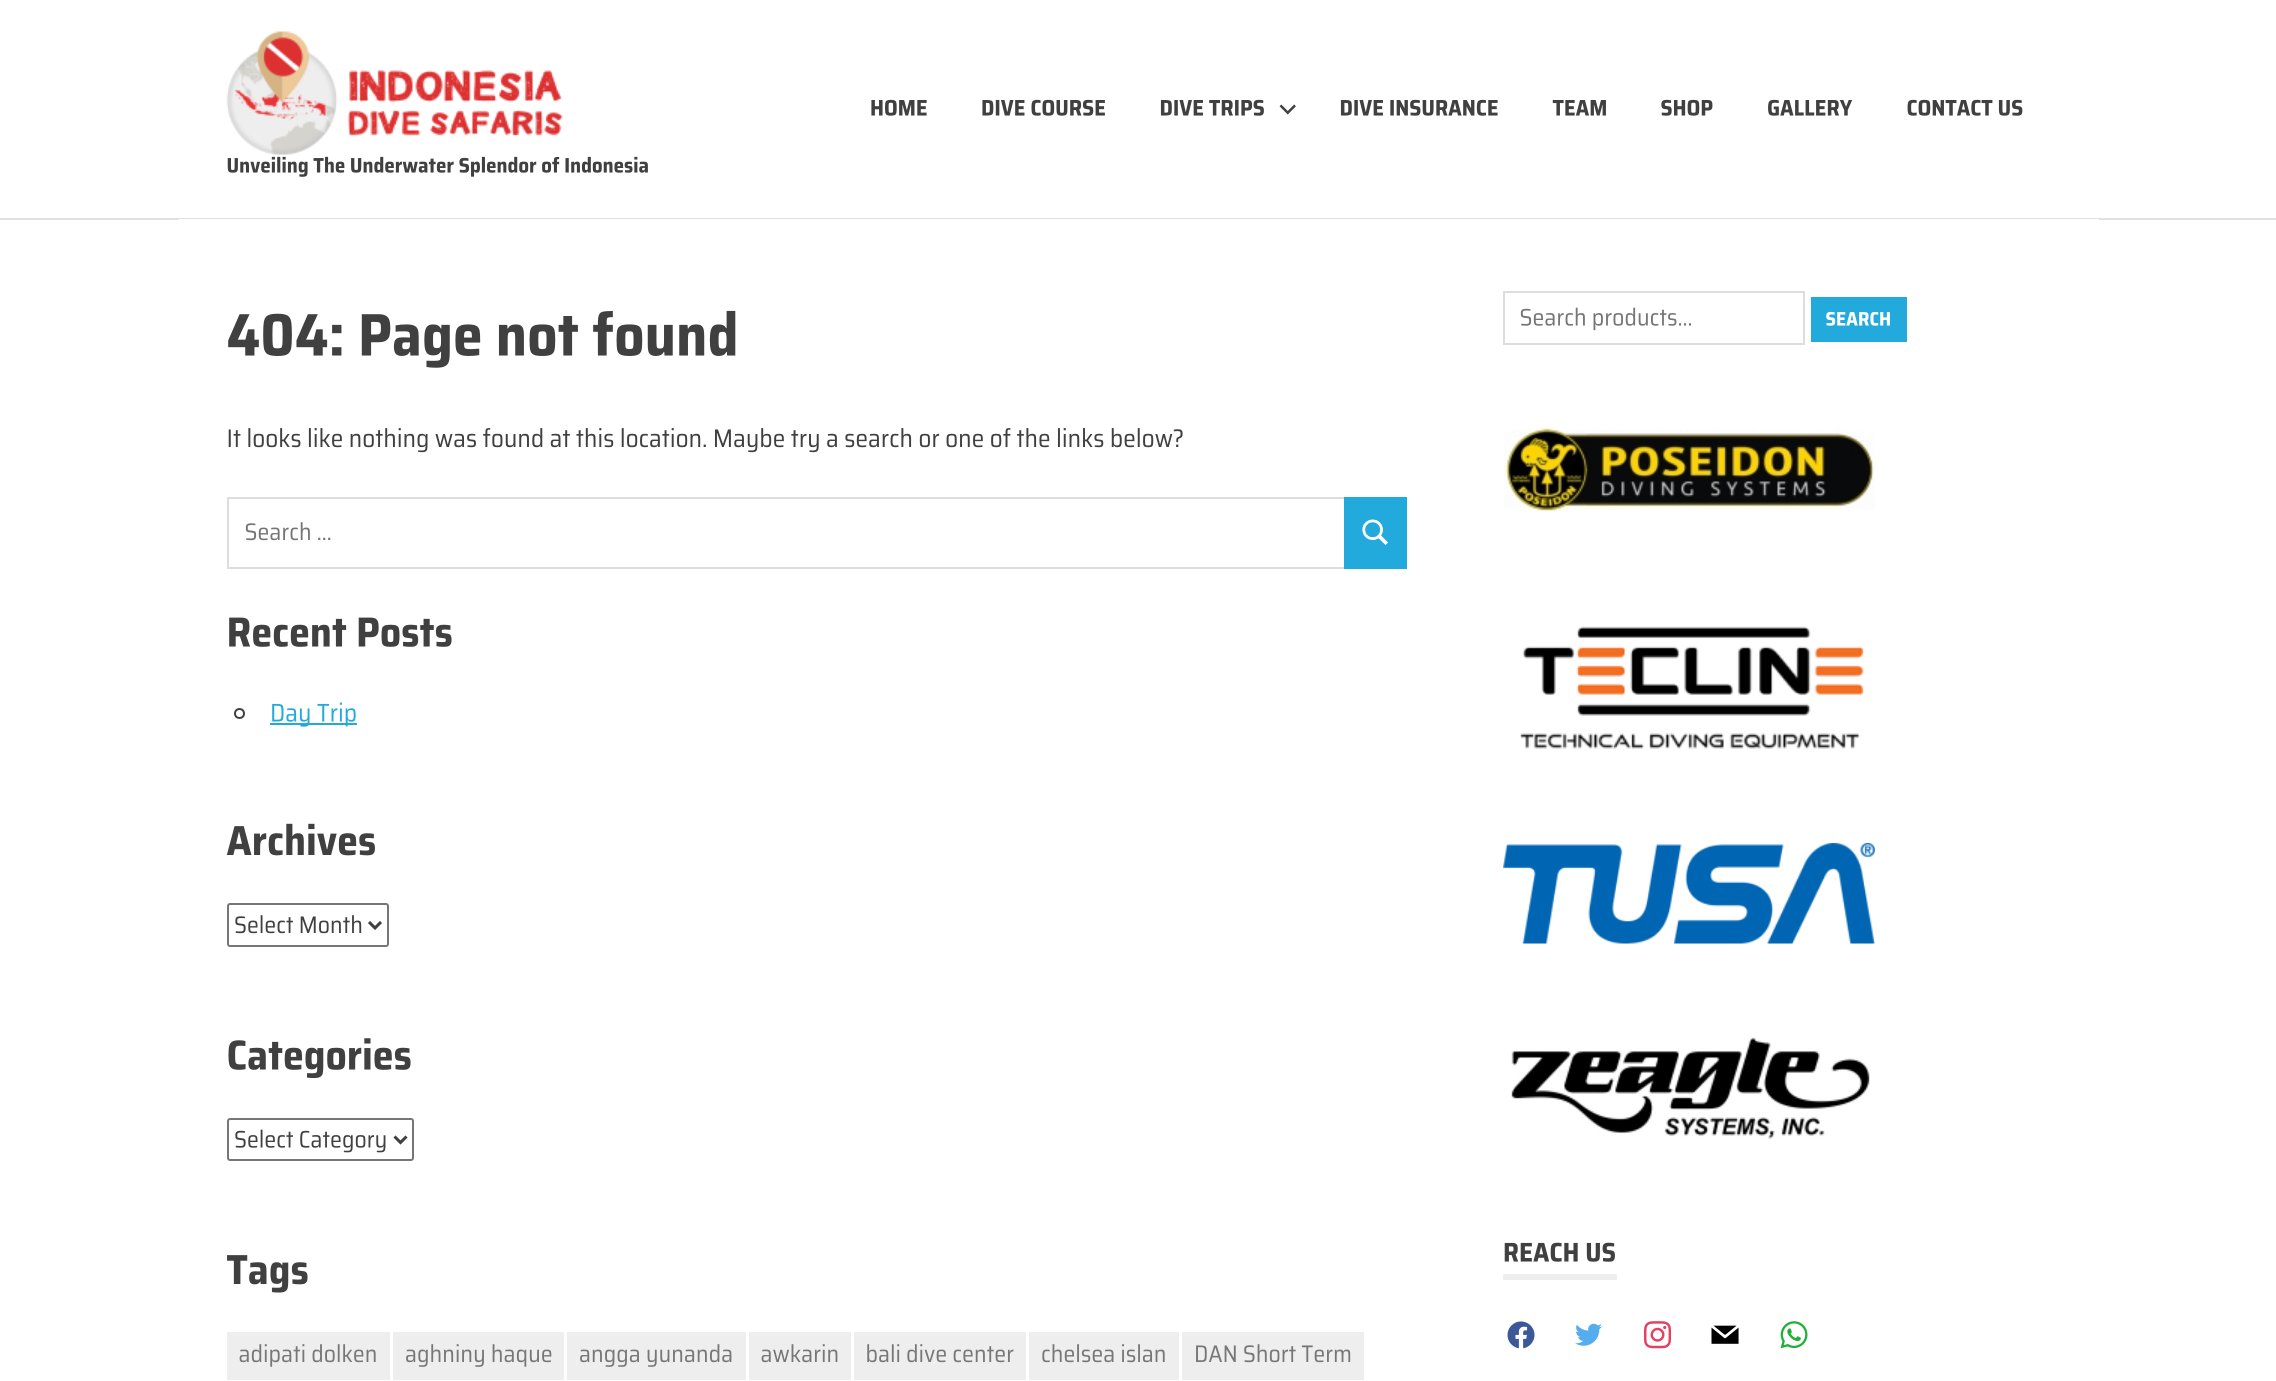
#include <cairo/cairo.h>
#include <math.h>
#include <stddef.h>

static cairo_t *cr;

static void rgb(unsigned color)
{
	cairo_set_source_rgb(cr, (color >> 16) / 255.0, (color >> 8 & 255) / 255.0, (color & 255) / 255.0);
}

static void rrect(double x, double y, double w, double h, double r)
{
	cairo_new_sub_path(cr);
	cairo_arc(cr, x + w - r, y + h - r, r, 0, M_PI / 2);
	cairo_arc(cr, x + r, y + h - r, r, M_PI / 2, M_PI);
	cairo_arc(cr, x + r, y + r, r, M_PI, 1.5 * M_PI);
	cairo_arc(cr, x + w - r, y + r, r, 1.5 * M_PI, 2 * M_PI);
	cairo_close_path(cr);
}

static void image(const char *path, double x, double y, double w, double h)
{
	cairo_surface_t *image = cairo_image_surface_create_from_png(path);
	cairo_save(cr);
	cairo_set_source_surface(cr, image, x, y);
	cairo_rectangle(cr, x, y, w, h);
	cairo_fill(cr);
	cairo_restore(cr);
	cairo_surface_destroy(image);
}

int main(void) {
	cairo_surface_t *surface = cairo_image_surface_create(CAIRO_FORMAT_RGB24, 2276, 1381);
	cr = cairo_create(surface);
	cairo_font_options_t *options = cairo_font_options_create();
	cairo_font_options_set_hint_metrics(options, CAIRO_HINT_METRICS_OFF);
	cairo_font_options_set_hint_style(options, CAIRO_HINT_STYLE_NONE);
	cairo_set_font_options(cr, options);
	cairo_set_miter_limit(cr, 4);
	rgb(0xffffff);
	cairo_paint(cr);
	rgb(0xe0e0e0);
	cairo_rectangle(cr, 0, 218, 2276, 2);
	cairo_fill(cr);
	image("img/1.png", 226, 31, 337, 124);
	image("img/2.png", 227, 156, 421, 21);
	image("img/3.png", 871, 99, 56, 17);
	image("img/4.png", 982, 99, 123, 17);
	image("img/5.png", 1160, 99, 104, 17);
	image("img/6.png", 1279, 104, 17, 11);
	image("img/7.png", 1340, 99, 158, 17);
	image("img/8.png", 1552, 100, 54, 16);
	image("img/9.png", 1661, 99, 52, 17);
	image("img/10.png", 1768, 99, 85, 17);
	image("img/11.png", 1907, 99, 116, 17);
	rgb(0xffffff);
	cairo_rectangle(cr, 179, 219, 1920, 1);
	cairo_fill(cr);
	image("img/12.png", 228, 310, 508, 58);
	image("img/13.png", 228, 428, 955, 25);
	cairo_rectangle(cr, 228, 498, 1117, 70);
	rgb(0xdddddd);
	cairo_stroke(cr);
	image("img/14.png", 245, 522, 86, 19);
	rgb(0x22aadd);
	cairo_rectangle(cr, 1344, 497, 63, 72);
	cairo_fill(cr);
	image("img/15.png", 1362, 519, 26, 26);
	image("img/16.png", 229, 617, 223, 30);
	cairo_arc(cr, 239.5, 713.5, 4.5, 0, 2 * M_PI);
	rgb(0x404040);
	cairo_stroke(cr);
	rgb(0x22aadd);
	cairo_rectangle(cr, 270, 723, 87, 2);
	cairo_fill(cr);
	image("img/17.png", 272, 702, 84, 25);
	image("img/18.png", 226, 823, 149, 33);
	rrect(228, 904, 160, 42, 2);
	rgb(0x767676);
	cairo_stroke(cr);
	cairo_new_path(cr);
	cairo_move_to(cr, 369, 922);
	cairo_line_to(cr, 375, 928);
	cairo_line_to(cr, 381, 922);
	rgb(0x404040);
	cairo_set_line_width(cr, 3);
	cairo_stroke(cr);
	image("img/19.png", 235, 915, 127, 19);
	image("img/20.png", 228, 1038, 183, 41);
	rrect(228, 1119, 185, 41, 2);
	rgb(0x767676);
	cairo_set_line_width(cr, 2);
	cairo_stroke(cr);
	cairo_new_path(cr);
	cairo_move_to(cr, 394.5, 1136.5);
	cairo_line_to(cr, 400.5, 1142.5);
	cairo_line_to(cr, 406.5, 1136.5);
	rgb(0x404040);
	cairo_set_line_width(cr, 3);
	cairo_stroke(cr);
	image("img/21.png", 235, 1129, 151, 24);
	image("img/22.png", 227, 1255, 81, 38);
	rgb(0xeeeeee);
	cairo_rectangle(cr, 227, 1332, 163, 48);
	cairo_fill(cr);
	image("img/23.png", 239, 1344, 137, 23);
	cairo_rectangle(cr, 393, 1332, 171, 48);
	cairo_fill(cr);
	image("img/24.png", 406, 1344, 146, 23);
	cairo_rectangle(cr, 567, 1332, 179, 48);
	cairo_fill(cr);
	image("img/25.png", 580, 1344, 152, 23);
	cairo_rectangle(cr, 749, 1332, 102, 48);
	cairo_fill(cr);
	image("img/26.png", 761, 1344, 77, 19);
	cairo_rectangle(cr, 854, 1332, 172, 48);
	cairo_fill(cr);
	image("img/27.png", 867, 1344, 147, 19);
	cairo_rectangle(cr, 1029, 1332, 150, 48);
	cairo_fill(cr);
	image("img/28.png", 1042, 1344, 123, 19);
	cairo_rectangle(cr, 1182, 1332, 182, 48);
	cairo_fill(cr);
	image("img/29.png", 1196, 1344, 155, 19);
	cairo_rectangle(cr, 1504, 292, 300, 52);
	rgb(0xdddddd);
	cairo_set_line_width(cr, 2);
	cairo_stroke(cr);
	image("img/30.png", 1520, 307, 172, 24);
	rgb(0x22aadd);
	cairo_rectangle(cr, 1811, 297, 96, 45);
	cairo_fill(cr);
	image("img/31.png", 1826, 311, 64, 15);
	image("img/32.png", 1504, 427, 371, 85);
	image("img/33.png", 1519, 626, 345, 123);
	image("img/34.png", 1503, 843, 372, 101);
	image("img/35.png", 1511, 1037, 359, 102);
	rgb(0xeeeeee);
	cairo_rectangle(cr, 1503, 1274, 114, 6);
	cairo_fill(cr);
	image("img/36.png", 1504, 1242, 111, 20);
	image("img/37.png", 1507, 1321, 28, 28);
	image("img/38.png", 1575, 1323, 27, 23);
	image("img/39.png", 1644, 1321, 28, 28);
	image("img/40.png", 1711, 1325, 28, 19);
	image("img/41.png", 1780, 1321, 28, 28);
	cairo_surface_write_to_png(surface, "page.png");
	cairo_font_options_destroy(options);
	cairo_destroy(cr);
	cairo_surface_destroy(surface);
	return 0;
}
